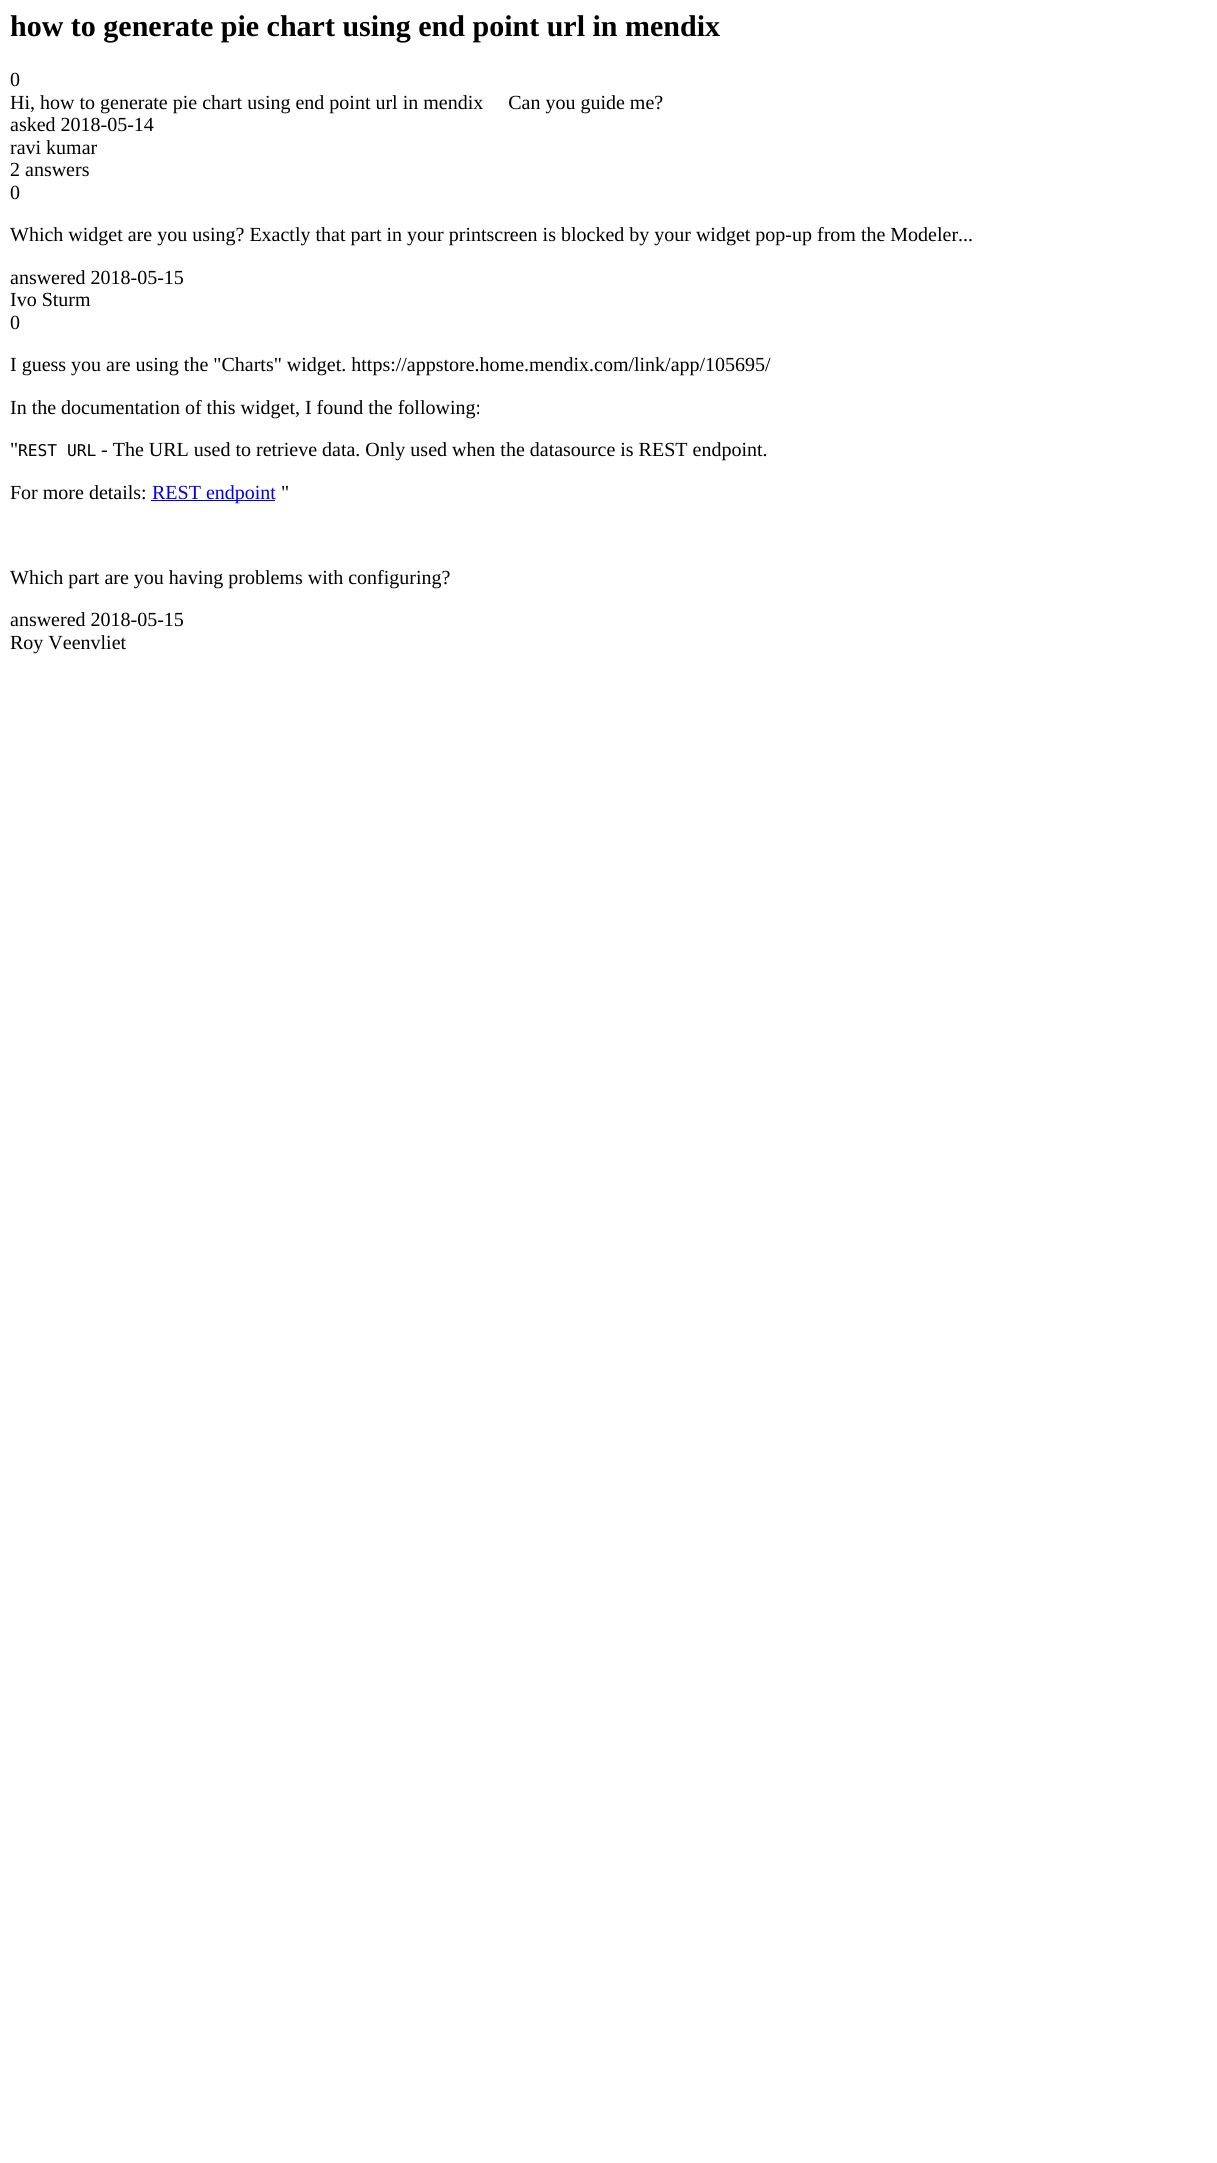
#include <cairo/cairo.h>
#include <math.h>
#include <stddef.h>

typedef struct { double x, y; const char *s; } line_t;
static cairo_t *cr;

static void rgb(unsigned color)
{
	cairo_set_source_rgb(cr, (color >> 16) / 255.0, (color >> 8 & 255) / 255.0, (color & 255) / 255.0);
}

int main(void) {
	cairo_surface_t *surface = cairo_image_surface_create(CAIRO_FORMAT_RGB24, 1217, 2163);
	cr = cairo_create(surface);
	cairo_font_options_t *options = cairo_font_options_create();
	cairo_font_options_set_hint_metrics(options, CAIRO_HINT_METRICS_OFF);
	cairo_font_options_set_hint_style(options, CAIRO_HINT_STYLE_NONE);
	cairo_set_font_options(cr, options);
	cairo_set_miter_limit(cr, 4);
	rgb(0xffffff);
	cairo_paint(cr);
	rgb(0x0000ee);
	cairo_rectangle(cr, 151, 500, 124, 1);
	cairo_fill(cr);
	cairo_select_font_face(cr, "Liberation Serif", CAIRO_FONT_SLANT_NORMAL, CAIRO_FONT_WEIGHT_BOLD);
	cairo_set_font_size(cr, 30);
	rgb(0x000000);
	cairo_move_to(cr, 10, 36);
	cairo_show_text(cr, "how to generate pie chart using end point url in mendix");
	cairo_select_font_face(cr, "Liberation Serif", CAIRO_FONT_SLANT_NORMAL, CAIRO_FONT_WEIGHT_NORMAL);
	cairo_set_font_size(cr, 20);
	{
		static const line_t items[] = {
			{10, 86, "0"},
			{10, 109, "Hi, how to generate pie chart using end point url in mendix     Can you guide me?"},
			{10, 131, "asked 2018-05-14"},
			{10, 154, "ravi kumar"},
			{10, 176, "2 answers"},
			{10, 199, "0"},
			{10, 241, "Which widget are you using? Exactly that part in your printscreen is blocked by your widget pop-up from the Modeler..."},
			{10, 284, "answered 2018-05-15"},
			{10, 306, "Ivo Sturm"},
			{10, 329, "0"},
			{10, 371, "I guess you are using the \"Charts\" widget. https://appstore.home.mendix.com/link/app/105695/"},
			{10, 414, "In the documentation of this widget, I found the following:"},
			{10, 456, "\""},
		};
		for (size_t i = 0; i < sizeof items / sizeof *items; i++) {
			cairo_move_to(cr, items[i].x, items[i].y);
			cairo_show_text(cr, items[i].s);
		}
	}
	cairo_select_font_face(cr, "DejaVu Sans Mono", CAIRO_FONT_SLANT_NORMAL, CAIRO_FONT_WEIGHT_NORMAL);
	cairo_set_font_size(cr, 16.25);
	cairo_move_to(cr, 18, 456);
	cairo_show_text(cr, "REST URL");
	cairo_select_font_face(cr, "Liberation Serif", CAIRO_FONT_SLANT_NORMAL, CAIRO_FONT_WEIGHT_NORMAL);
	cairo_set_font_size(cr, 20);
	cairo_move_to(cr, 101, 456);
	cairo_show_text(cr, "- The URL used to retrieve data. Only used when the datasource is REST endpoint.");
	cairo_move_to(cr, 10, 499);
	cairo_show_text(cr, "For more details:");
	rgb(0x0000ee);
	cairo_move_to(cr, 152, 499);
	cairo_show_text(cr, "REST endpoint");
	rgb(0x000000);
	{
		static const line_t items[] = {
			{281, 499, "\""},
			{10, 584, "Which part are you having problems with configuring?"},
			{10, 626, "answered 2018-05-15"},
			{10, 649, "Roy Veenvliet"},
		};
		for (size_t i = 0; i < sizeof items / sizeof *items; i++) {
			cairo_move_to(cr, items[i].x, items[i].y);
			cairo_show_text(cr, items[i].s);
		}
	}
	cairo_surface_write_to_png(surface, "page.png");
	cairo_font_options_destroy(options);
	cairo_destroy(cr);
	cairo_surface_destroy(surface);
	return 0;
}
